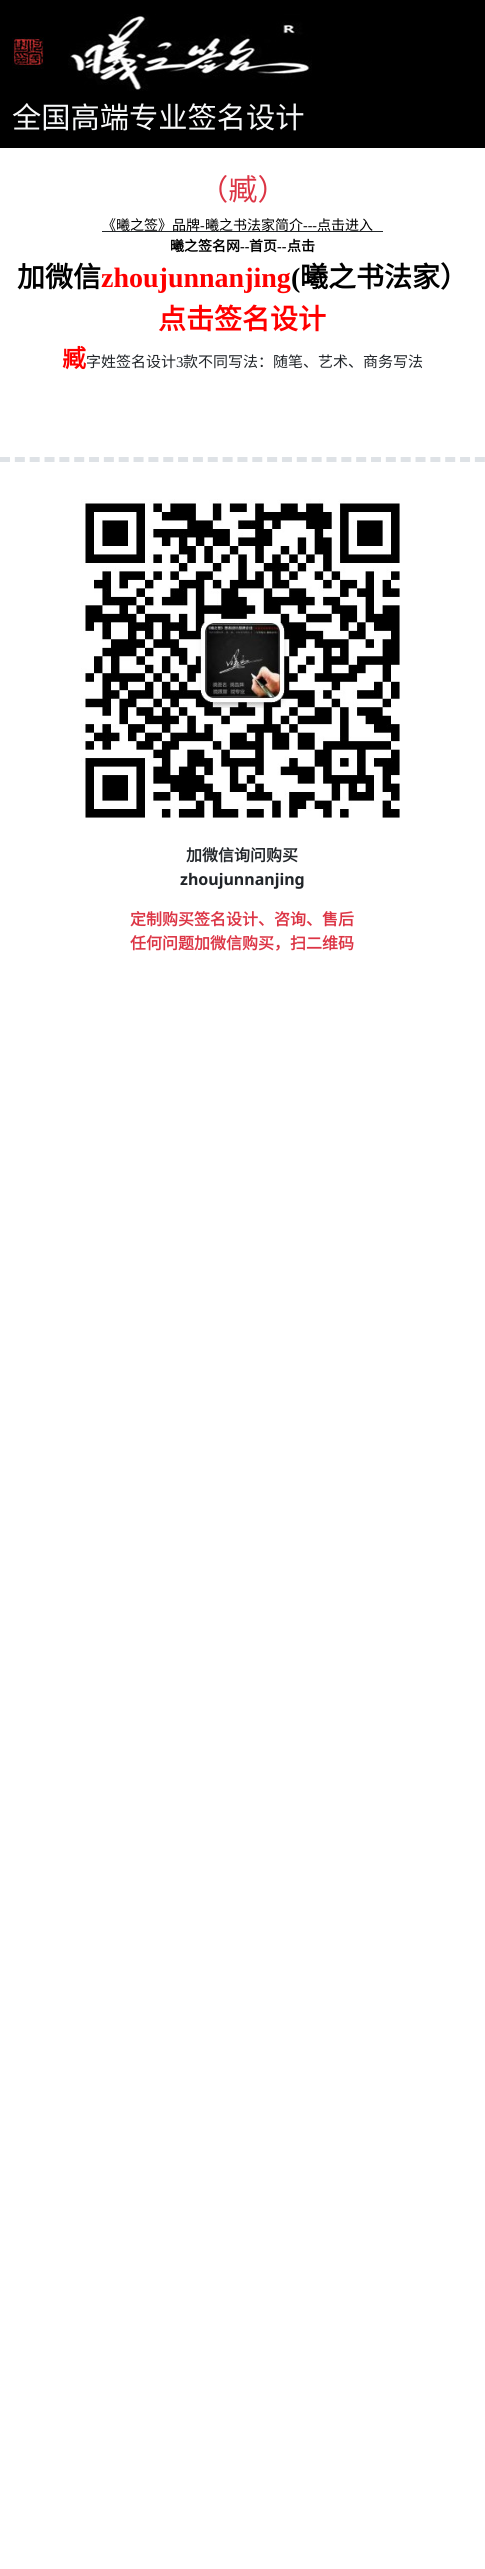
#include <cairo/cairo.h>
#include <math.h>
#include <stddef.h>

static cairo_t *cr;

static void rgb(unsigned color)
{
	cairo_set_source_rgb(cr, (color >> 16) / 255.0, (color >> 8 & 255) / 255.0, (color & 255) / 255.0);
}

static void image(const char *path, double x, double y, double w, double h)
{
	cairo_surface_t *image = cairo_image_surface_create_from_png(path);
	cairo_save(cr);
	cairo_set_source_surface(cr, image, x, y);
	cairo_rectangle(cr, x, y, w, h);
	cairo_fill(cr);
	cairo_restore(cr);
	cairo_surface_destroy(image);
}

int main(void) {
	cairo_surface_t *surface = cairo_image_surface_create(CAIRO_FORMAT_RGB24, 485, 2569);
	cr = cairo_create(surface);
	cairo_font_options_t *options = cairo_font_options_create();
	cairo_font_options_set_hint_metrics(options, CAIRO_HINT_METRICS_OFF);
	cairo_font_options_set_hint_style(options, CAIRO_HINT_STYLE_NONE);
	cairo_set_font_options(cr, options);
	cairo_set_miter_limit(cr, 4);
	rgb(0xffffff);
	cairo_paint(cr);
	rgb(0x000000);
	cairo_rectangle(cr, 0, 0, 485, 148);
	cairo_fill(cr);
	image("img/1.png", 12, 14, 300, 77);
	rgb(0x212529);
	cairo_rectangle(cr, 102, 231, 281, 1);
	cairo_fill(cr);
	cairo_new_path(cr);
	cairo_move_to(cr, 0, 459.5);
	cairo_line_to(cr, 485, 459.5);
	rgb(0xdee2e6);
	cairo_set_line_width(cr, 5);
	cairo_set_dash(cr, (double[]){10, 4.84}, 2, 0);
	cairo_stroke(cr);
	image("img/2.png", 81, 499, 319, 319);
	cairo_select_font_face(cr, "Noto Sans CJK SC", CAIRO_FONT_SLANT_NORMAL, CAIRO_FONT_WEIGHT_NORMAL);
	cairo_set_font_size(cr, 29.25);
	rgb(0xf8f9fa);
	cairo_move_to(cr, 12, 128);
	cairo_show_text(cr, "全国高端专业签名设计");
	rgb(0xdc3545);
	cairo_move_to(cr, 199, 200);
	cairo_show_text(cr, "（臧）");
	cairo_set_font_size(cr, 14);
	rgb(0x000000);
	cairo_move_to(cr, 102, 230);
	cairo_show_text(cr, "《曦之签》品牌");
	cairo_select_font_face(cr, "Liberation Serif", CAIRO_FONT_SLANT_NORMAL, CAIRO_FONT_WEIGHT_NORMAL);
	cairo_move_to(cr, 200, 230);
	cairo_show_text(cr, "-");
	cairo_select_font_face(cr, "Noto Sans CJK SC", CAIRO_FONT_SLANT_NORMAL, CAIRO_FONT_WEIGHT_NORMAL);
	cairo_move_to(cr, 205, 230);
	cairo_show_text(cr, "曦之书法家简介");
	cairo_select_font_face(cr, "Liberation Serif", CAIRO_FONT_SLANT_NORMAL, CAIRO_FONT_WEIGHT_NORMAL);
	cairo_move_to(cr, 303, 230);
	cairo_show_text(cr, "---");
	cairo_select_font_face(cr, "Noto Sans CJK SC", CAIRO_FONT_SLANT_NORMAL, CAIRO_FONT_WEIGHT_NORMAL);
	cairo_move_to(cr, 317, 230);
	cairo_show_text(cr, "点击进入");
	cairo_select_font_face(cr, "Noto Sans CJK SC", CAIRO_FONT_SLANT_NORMAL, CAIRO_FONT_WEIGHT_BOLD);
	cairo_move_to(cr, 170, 251);
	cairo_show_text(cr, "曦之签名网");
	cairo_select_font_face(cr, "Liberation Serif", CAIRO_FONT_SLANT_NORMAL, CAIRO_FONT_WEIGHT_BOLD);
	cairo_move_to(cr, 240, 251);
	cairo_show_text(cr, "--");
	cairo_select_font_face(cr, "Noto Sans CJK SC", CAIRO_FONT_SLANT_NORMAL, CAIRO_FONT_WEIGHT_BOLD);
	cairo_move_to(cr, 249, 251);
	cairo_show_text(cr, "首页");
	cairo_select_font_face(cr, "Liberation Serif", CAIRO_FONT_SLANT_NORMAL, CAIRO_FONT_WEIGHT_BOLD);
	cairo_move_to(cr, 277, 251);
	cairo_show_text(cr, "--");
	cairo_select_font_face(cr, "Noto Sans CJK SC", CAIRO_FONT_SLANT_NORMAL, CAIRO_FONT_WEIGHT_BOLD);
	cairo_move_to(cr, 287, 251);
	cairo_show_text(cr, "点击");
	cairo_set_font_size(cr, 28);
	cairo_move_to(cr, 17, 287);
	cairo_show_text(cr, "加微信");
	cairo_select_font_face(cr, "Liberation Serif", CAIRO_FONT_SLANT_NORMAL, CAIRO_FONT_WEIGHT_BOLD);
	rgb(0xff0000);
	cairo_move_to(cr, 101, 287);
	cairo_show_text(cr, "zhoujunnanjing");
	rgb(0x000000);
	cairo_move_to(cr, 291, 287);
	cairo_show_text(cr, "(");
	cairo_select_font_face(cr, "Noto Sans CJK SC", CAIRO_FONT_SLANT_NORMAL, CAIRO_FONT_WEIGHT_BOLD);
	cairo_move_to(cr, 300, 287);
	cairo_show_text(cr, "曦之书法家）");
	rgb(0xff0000);
	cairo_move_to(cr, 158, 329);
	cairo_show_text(cr, "点击签名设计");
	cairo_set_font_size(cr, 24);
	cairo_move_to(cr, 62, 367);
	cairo_show_text(cr, "臧");
	cairo_select_font_face(cr, "Noto Sans CJK SC", CAIRO_FONT_SLANT_NORMAL, CAIRO_FONT_WEIGHT_NORMAL);
	cairo_set_font_size(cr, 15);
	rgb(0x212529);
	cairo_move_to(cr, 86, 367);
	cairo_show_text(cr, "字姓签名设计");
	cairo_select_font_face(cr, "Liberation Serif", CAIRO_FONT_SLANT_NORMAL, CAIRO_FONT_WEIGHT_NORMAL);
	cairo_move_to(cr, 176, 367);
	cairo_show_text(cr, "3");
	cairo_select_font_face(cr, "Noto Sans CJK SC", CAIRO_FONT_SLANT_NORMAL, CAIRO_FONT_WEIGHT_NORMAL);
	cairo_move_to(cr, 183, 367);
	cairo_show_text(cr, "款不同写法：随笔、艺术、商务写法");
	cairo_select_font_face(cr, "Noto Sans CJK SC", CAIRO_FONT_SLANT_NORMAL, CAIRO_FONT_WEIGHT_BOLD);
	cairo_set_font_size(cr, 16);
	cairo_move_to(cr, 186, 861);
	cairo_show_text(cr, "加微信询问购买");
	cairo_select_font_face(cr, "Noto Sans", CAIRO_FONT_SLANT_NORMAL, CAIRO_FONT_WEIGHT_BOLD);
	cairo_move_to(cr, 180, 885);
	cairo_show_text(cr, "zhoujunnanjing");
	cairo_select_font_face(cr, "Noto Sans CJK SC", CAIRO_FONT_SLANT_NORMAL, CAIRO_FONT_WEIGHT_BOLD);
	rgb(0xdc3545);
	cairo_move_to(cr, 130, 925);
	cairo_show_text(cr, "定制购买签名设计、咨询、售后");
	cairo_move_to(cr, 130, 949);
	cairo_show_text(cr, "任何问题加微信购买，扫二维码");
	cairo_surface_write_to_png(surface, "page.png");
	cairo_font_options_destroy(options);
	cairo_destroy(cr);
	cairo_surface_destroy(surface);
	return 0;
}
